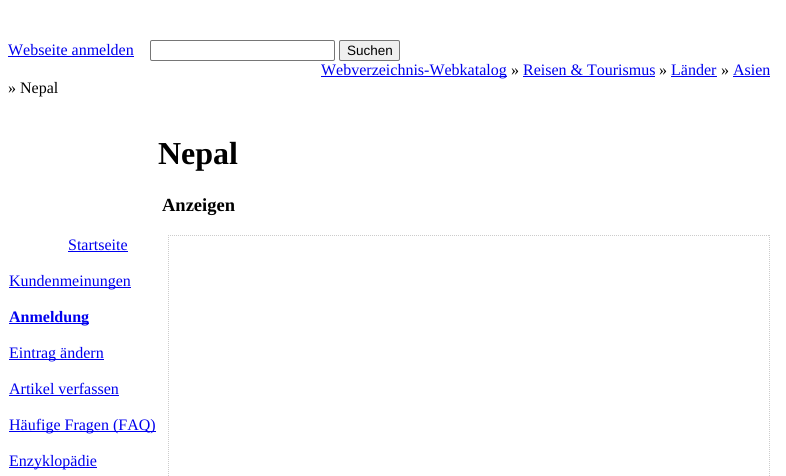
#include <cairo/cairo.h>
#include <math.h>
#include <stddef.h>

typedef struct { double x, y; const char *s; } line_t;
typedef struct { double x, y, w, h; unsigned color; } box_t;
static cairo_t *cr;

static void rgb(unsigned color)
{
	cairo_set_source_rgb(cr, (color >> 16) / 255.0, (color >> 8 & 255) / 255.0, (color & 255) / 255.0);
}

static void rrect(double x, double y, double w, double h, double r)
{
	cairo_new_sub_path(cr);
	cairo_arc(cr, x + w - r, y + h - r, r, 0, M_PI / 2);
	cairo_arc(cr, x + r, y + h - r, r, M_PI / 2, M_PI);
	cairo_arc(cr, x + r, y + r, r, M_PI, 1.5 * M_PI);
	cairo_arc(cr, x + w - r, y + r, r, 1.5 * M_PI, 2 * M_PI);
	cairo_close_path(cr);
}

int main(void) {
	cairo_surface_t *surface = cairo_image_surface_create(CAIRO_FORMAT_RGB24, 786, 476);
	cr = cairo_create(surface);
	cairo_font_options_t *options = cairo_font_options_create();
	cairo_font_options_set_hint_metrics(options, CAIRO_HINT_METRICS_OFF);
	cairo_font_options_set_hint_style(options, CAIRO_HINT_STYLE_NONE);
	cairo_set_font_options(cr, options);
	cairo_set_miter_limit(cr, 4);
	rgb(0xffffff);
	cairo_paint(cr);
	rgb(0x0000ee);
	cairo_rectangle(cr, 8, 56, 126, 1);
	cairo_fill(cr);
	rrect(150.5, 40.5, 184, 20, 1.5);
	rgb(0x767676);
	cairo_set_line_width(cr, 1);
	cairo_stroke(cr);
	rgb(0xefefef);
	rrect(339.5, 40.5, 60, 20, 1.5);
	cairo_fill_preserve(cr);
	rgb(0x767676);
	cairo_stroke(cr);
	{
		static const box_t items[] = {
			{321, 76, 186, 1, 0x0000ee},
			{523, 76, 132, 1, 0x0000ee},
			{671, 76, 46, 1, 0x0000ee},
			{733, 76, 37, 1, 0x0000ee},
		};
		for (size_t i = 0; i < sizeof items / sizeof *items; i++) {
			rgb(items[i].color);
			cairo_rectangle(cr, items[i].x, items[i].y, items[i].w, items[i].h);
			cairo_fill(cr);
		}
	}
	cairo_new_path(cr);
	cairo_move_to(cr, 168, 235.5);
	cairo_line_to(cr, 770, 235.5);
	rgb(0xcccccc);
	cairo_set_dash(cr, (double[]){1, 1}, 2, 0);
	cairo_stroke(cr);
	cairo_new_path(cr);
	cairo_move_to(cr, 769.5, 235);
	cairo_line_to(cr, 769.5, 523);
	cairo_stroke(cr);
	cairo_new_path(cr);
	cairo_move_to(cr, 168.5, 235);
	cairo_line_to(cr, 168.5, 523);
	cairo_stroke(cr);
	{
		static const box_t items[] = {
			{68, 251, 60, 1, 0x0000ee},
			{9, 287, 122, 1, 0x0000ee},
			{9, 323, 80, 1, 0x0000ee},
			{9, 359, 95, 1, 0x0000ee},
			{9, 395, 110, 1, 0x0000ee},
			{9, 431, 147, 1, 0x0000ee},
			{9, 467, 88, 1, 0x0000ee},
		};
		for (size_t i = 0; i < sizeof items / sizeof *items; i++) {
			rgb(items[i].color);
			cairo_rectangle(cr, items[i].x, items[i].y, items[i].w, items[i].h);
			cairo_fill(cr);
		}
	}
	cairo_select_font_face(cr, "Liberation Serif", CAIRO_FONT_SLANT_NORMAL, CAIRO_FONT_WEIGHT_NORMAL);
	cairo_set_font_size(cr, 16);
	cairo_move_to(cr, 8, 55);
	cairo_show_text(cr, "Webseite anmelden");
	cairo_select_font_face(cr, "Liberation Sans", CAIRO_FONT_SLANT_NORMAL, CAIRO_FONT_WEIGHT_NORMAL);
	cairo_set_font_size(cr, 13.5);
	rgb(0x000000);
	cairo_move_to(cr, 347, 55);
	cairo_show_text(cr, "Suchen");
	cairo_select_font_face(cr, "Liberation Serif", CAIRO_FONT_SLANT_NORMAL, CAIRO_FONT_WEIGHT_NORMAL);
	cairo_set_font_size(cr, 16);
	rgb(0x0000ee);
	cairo_move_to(cr, 321, 75);
	cairo_show_text(cr, "Webverzeichnis-Webkatalog");
	rgb(0x000000);
	cairo_move_to(cr, 511, 75);
	cairo_show_text(cr, "»");
	rgb(0x0000ee);
	cairo_move_to(cr, 523, 75);
	cairo_show_text(cr, "Reisen & Tourismus");
	rgb(0x000000);
	cairo_move_to(cr, 659, 75);
	cairo_show_text(cr, "»");
	rgb(0x0000ee);
	cairo_move_to(cr, 671, 75);
	cairo_show_text(cr, "Länder");
	rgb(0x000000);
	cairo_move_to(cr, 721, 75);
	cairo_show_text(cr, "»");
	rgb(0x0000ee);
	cairo_move_to(cr, 733, 75);
	cairo_show_text(cr, "Asien");
	rgb(0x000000);
	cairo_move_to(cr, 8, 93);
	cairo_show_text(cr, "» Nepal");
	cairo_select_font_face(cr, "Liberation Serif", CAIRO_FONT_SLANT_NORMAL, CAIRO_FONT_WEIGHT_BOLD);
	cairo_set_font_size(cr, 32);
	cairo_move_to(cr, 158, 164);
	cairo_show_text(cr, "Nepal");
	cairo_set_font_size(cr, 18.5);
	cairo_move_to(cr, 162, 211);
	cairo_show_text(cr, "Anzeigen");
	cairo_select_font_face(cr, "Liberation Serif", CAIRO_FONT_SLANT_NORMAL, CAIRO_FONT_WEIGHT_NORMAL);
	cairo_set_font_size(cr, 16);
	rgb(0x0000ee);
	cairo_move_to(cr, 68, 250);
	cairo_show_text(cr, "Startseite");
	cairo_move_to(cr, 9, 286);
	cairo_show_text(cr, "Kundenmeinungen");
	cairo_select_font_face(cr, "Liberation Serif", CAIRO_FONT_SLANT_NORMAL, CAIRO_FONT_WEIGHT_BOLD);
	cairo_move_to(cr, 9, 322);
	cairo_show_text(cr, "Anmeldung");
	cairo_select_font_face(cr, "Liberation Serif", CAIRO_FONT_SLANT_NORMAL, CAIRO_FONT_WEIGHT_NORMAL);
	{
		static const line_t items[] = {
			{9, 358, "Eintrag ändern"},
			{9, 394, "Artikel verfassen"},
			{9, 430, "Häufige Fragen (FAQ)"},
			{9, 466, "Enzyklopädie"},
		};
		for (size_t i = 0; i < sizeof items / sizeof *items; i++) {
			cairo_move_to(cr, items[i].x, items[i].y);
			cairo_show_text(cr, items[i].s);
		}
	}
	cairo_surface_write_to_png(surface, "page.png");
	cairo_font_options_destroy(options);
	cairo_destroy(cr);
	cairo_surface_destroy(surface);
	return 0;
}
